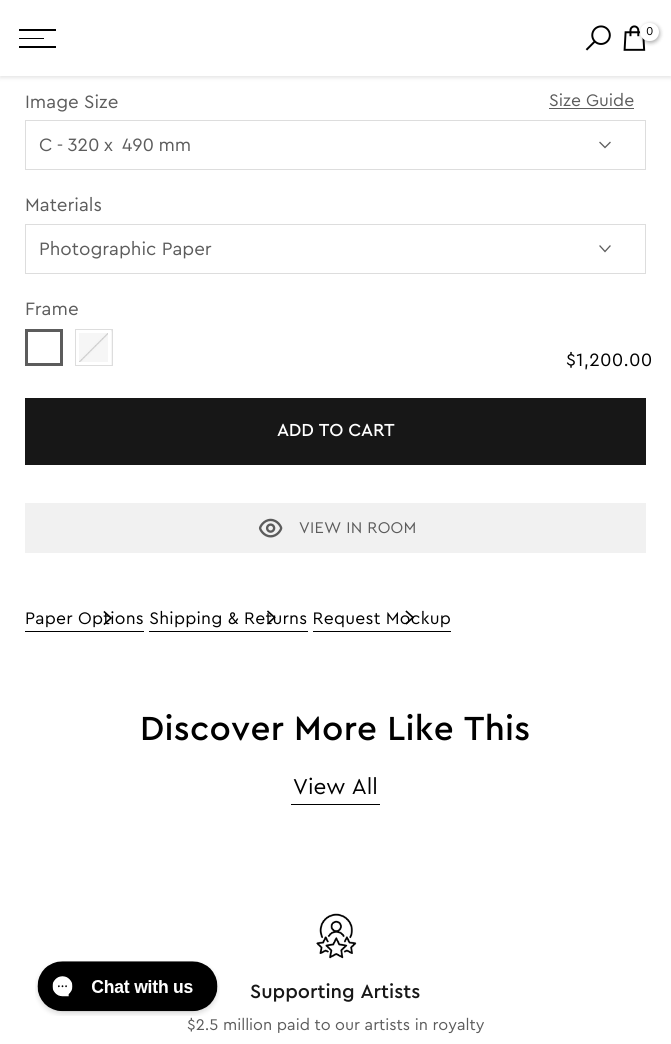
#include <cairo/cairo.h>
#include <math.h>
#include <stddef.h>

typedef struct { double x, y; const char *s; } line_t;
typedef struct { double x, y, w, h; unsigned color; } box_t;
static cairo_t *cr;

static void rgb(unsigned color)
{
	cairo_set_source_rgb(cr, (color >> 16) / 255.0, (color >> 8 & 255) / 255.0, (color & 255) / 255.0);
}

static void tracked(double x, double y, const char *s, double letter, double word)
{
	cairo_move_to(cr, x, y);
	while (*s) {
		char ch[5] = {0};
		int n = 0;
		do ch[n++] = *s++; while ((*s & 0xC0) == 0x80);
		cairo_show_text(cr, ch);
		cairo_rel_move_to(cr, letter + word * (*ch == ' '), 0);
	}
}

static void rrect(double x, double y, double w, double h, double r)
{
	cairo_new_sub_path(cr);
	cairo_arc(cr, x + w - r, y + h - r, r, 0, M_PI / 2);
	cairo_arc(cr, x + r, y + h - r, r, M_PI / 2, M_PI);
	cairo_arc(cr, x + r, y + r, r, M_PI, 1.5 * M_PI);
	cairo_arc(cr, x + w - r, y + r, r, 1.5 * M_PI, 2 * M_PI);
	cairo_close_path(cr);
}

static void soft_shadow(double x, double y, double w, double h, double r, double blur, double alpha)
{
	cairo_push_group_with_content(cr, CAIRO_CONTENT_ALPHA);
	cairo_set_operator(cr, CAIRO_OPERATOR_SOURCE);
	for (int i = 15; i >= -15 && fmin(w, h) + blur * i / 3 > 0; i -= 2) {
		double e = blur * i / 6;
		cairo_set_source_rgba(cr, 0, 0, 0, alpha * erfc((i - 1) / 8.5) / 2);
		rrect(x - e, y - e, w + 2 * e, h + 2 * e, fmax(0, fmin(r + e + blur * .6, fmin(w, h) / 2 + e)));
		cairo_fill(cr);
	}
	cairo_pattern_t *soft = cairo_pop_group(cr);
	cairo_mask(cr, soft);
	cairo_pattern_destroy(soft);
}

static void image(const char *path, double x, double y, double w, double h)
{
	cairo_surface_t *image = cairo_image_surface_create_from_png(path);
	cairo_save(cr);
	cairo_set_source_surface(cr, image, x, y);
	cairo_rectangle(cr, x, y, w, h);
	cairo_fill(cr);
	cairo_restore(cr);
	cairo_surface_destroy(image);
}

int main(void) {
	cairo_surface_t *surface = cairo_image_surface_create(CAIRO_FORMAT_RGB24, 671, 1044);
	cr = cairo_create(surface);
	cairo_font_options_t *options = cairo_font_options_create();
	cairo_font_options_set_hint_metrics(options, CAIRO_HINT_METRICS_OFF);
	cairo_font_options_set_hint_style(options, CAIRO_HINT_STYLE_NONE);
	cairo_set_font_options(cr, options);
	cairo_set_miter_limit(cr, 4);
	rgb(0xffffff);
	cairo_paint(cr);
	rgb(0x000000);
	soft_shadow(0, 1, 671, 77, 0, 2, 0.1);
	{
		static const box_t items[] = {
			{0, 0, 671, 76, 0xffffff},
			{19, 29, 37, 2, 0x000000},
			{19, 38, 25, 1, 0x000000},
			{19, 46, 37, 2, 0x000000},
		};
		for (size_t i = 0; i < sizeof items / sizeof *items; i++) {
			rgb(items[i].color);
			cairo_rectangle(cr, items[i].x, items[i].y, items[i].w, items[i].h);
			cairo_fill(cr);
		}
	}
	image("img/1.png", 585, 25, 26, 26);
	image("img/2.png", 623, 25, 23, 26);
	rgb(0x000000);
	soft_shadow(641, 24, 19, 19, 9.5, 2, 0.3);
	rgb(0xffffff);
	rrect(640, 23, 19, 18, 9);
	cairo_fill(cr);
	rgb(0x5c5c5c);
	cairo_rectangle(cr, 549, 108, 85, 1);
	cairo_fill(cr);
	cairo_rectangle(cr, 25.5, 120.5, 620, 49);
	rgb(0xdddddd);
	cairo_set_line_width(cr, 1);
	cairo_stroke(cr);
	cairo_new_path(cr);
	cairo_move_to(cr, 610, 142.5);
	cairo_line_to(cr, 605, 147.5);
	cairo_line_to(cr, 600, 142.5);
	rgb(0x5c5c5c);
	cairo_set_line_width(cr, 1.3);
	cairo_set_line_cap(cr, CAIRO_LINE_CAP_SQUARE);
	cairo_stroke(cr);
	cairo_rectangle(cr, 25.5, 224.5, 620, 49);
	rgb(0xdddddd);
	cairo_set_line_width(cr, 1);
	cairo_set_line_cap(cr, CAIRO_LINE_CAP_BUTT);
	cairo_stroke(cr);
	cairo_new_path(cr);
	cairo_move_to(cr, 610, 246);
	cairo_line_to(cr, 605, 251.5);
	cairo_line_to(cr, 600, 246);
	rgb(0x5c5c5c);
	cairo_set_line_width(cr, 1.3);
	cairo_set_line_cap(cr, CAIRO_LINE_CAP_SQUARE);
	cairo_stroke(cr);
	cairo_rectangle(cr, 26.5, 330.5, 35, 34);
	cairo_set_line_width(cr, 3);
	cairo_set_line_cap(cr, CAIRO_LINE_CAP_BUTT);
	cairo_stroke(cr);
	rgb(0xf5f5f5);
	cairo_rectangle(cr, 111, 330, 1, 35);
	cairo_fill(cr);
	image("img/3.png", 79, 330, 33, 35);
	cairo_rectangle(cr, 77.5, 331.5, 32, 32);
	rgb(0xffffff);
	cairo_stroke(cr);
	cairo_rectangle(cr, 75.5, 329.5, 37, 36);
	rgb(0xdddddd);
	cairo_set_line_width(cr, 1);
	cairo_stroke(cr);
	rgb(0x171717);
	cairo_rectangle(cr, 25, 398, 621, 67);
	cairo_fill(cr);
	rgb(0xf1f1f1);
	cairo_rectangle(cr, 25, 503, 621, 50);
	cairo_fill(cr);
	image("img/4.png", 258, 518, 25, 20);
	rgb(0x000000);
	cairo_rectangle(cr, 25, 631, 119, 1);
	cairo_fill(cr);
	cairo_new_path(cr);
	cairo_move_to(cr, 104.5, 612);
	cairo_line_to(cr, 111, 618);
	cairo_line_to(cr, 104.5, 624);
	cairo_set_line_width(cr, 1.6);
	cairo_set_line_cap(cr, CAIRO_LINE_CAP_SQUARE);
	cairo_stroke(cr);
	cairo_new_path(cr);
	cairo_move_to(cr, 268, 611.5);
	cairo_line_to(cr, 274.5, 617.5);
	cairo_line_to(cr, 268, 623.5);
	cairo_stroke(cr);
	cairo_rectangle(cr, 149, 631, 159, 1);
	cairo_fill(cr);
	cairo_save(cr);
	cairo_new_path(cr);
	cairo_move_to(cr, 405, 625);
	cairo_line_to(cr, 405, 610);
	cairo_line_to(cr, 414.5, 610);
	cairo_line_to(cr, 414.5, 625);
	cairo_close_path(cr);
	cairo_clip(cr);
	cairo_new_path(cr);
	cairo_move_to(cr, 405, 625);
	cairo_line_to(cr, 405, 610);
	cairo_line_to(cr, 414.5, 610);
	cairo_line_to(cr, 414.5, 625);
	cairo_close_path(cr);
	cairo_clip(cr);
	cairo_new_path(cr);
	cairo_move_to(cr, 406.5, 611.5);
	cairo_line_to(cr, 413, 617.5);
	cairo_line_to(cr, 406.5, 623.5);
	cairo_stroke(cr);
	cairo_restore(cr);
	cairo_rectangle(cr, 313, 631, 138, 1);
	cairo_fill(cr);
	cairo_rectangle(cr, 291, 804, 89, 1);
	cairo_fill(cr);
	image("img/5.png", 316, 913, 41, 46);
	image("img/6.png", 35, 961, 185, 55);
	cairo_select_font_face(cr, "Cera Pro", CAIRO_FONT_SLANT_NORMAL, CAIRO_FONT_WEIGHT_NORMAL);
	cairo_set_font_size(cr, 12);
	cairo_move_to(cr, 646, 35);
	cairo_show_text(cr, "0");
	cairo_set_font_size(cr, 18.75);
	rgb(0x5c5c5c);
	cairo_move_to(cr, 25, 108);
	cairo_show_text(cr, "Image Size");
	cairo_set_font_size(cr, 17.5);
	cairo_move_to(cr, 549, 106);
	cairo_show_text(cr, "Size Guide");
	cairo_set_font_size(cr, 18.75);
	tracked(39, 151, "C - 320 x", 0, -1);
	tracked(122, 151, "490 mm", 0, -1);
	{
		static const line_t items[] = {
			{25, 211, "Materials"},
			{39, 255, "Photographic Paper"},
			{25, 315, "Frame"},
		};
		for (size_t i = 0; i < sizeof items / sizeof *items; i++) {
			cairo_move_to(cr, items[i].x, items[i].y);
			cairo_show_text(cr, items[i].s);
		}
	}
	rgb(0x000000);
	tracked(566, 366, "$1,200.00", 0.25, 0);
	cairo_select_font_face(cr, "Cera Pro", CAIRO_FONT_SLANT_NORMAL, CAIRO_FONT_WEIGHT_BOLD);
	cairo_set_font_size(cr, 17.5);
	rgb(0xffffff);
	tracked(277, 436, "ADD TO CART", 0.25, 0);
	cairo_select_font_face(cr, "Cera Pro", CAIRO_FONT_SLANT_NORMAL, CAIRO_FONT_WEIGHT_NORMAL);
	cairo_set_font_size(cr, 16.25);
	rgb(0x5c5c5c);
	tracked(299, 533, "VIEW IN ROOM", 0.25, 0);
	cairo_set_font_size(cr, 17.5);
	rgb(0x000000);
	tracked(25, 624, "Paper Options Shipping & Returns Request Mockup", 0.25, 0);
	cairo_select_font_face(cr, "Cera Pro Medium", CAIRO_FONT_SLANT_NORMAL, CAIRO_FONT_WEIGHT_NORMAL);
	cairo_set_font_size(cr, 35);
	tracked(140, 740, "Discover More Like This", 0.25, 0);
	cairo_select_font_face(cr, "Cera Pro", CAIRO_FONT_SLANT_NORMAL, CAIRO_FONT_WEIGHT_NORMAL);
	cairo_set_font_size(cr, 22.5);
	cairo_move_to(cr, 293, 794);
	cairo_show_text(cr, "View All");
	cairo_select_font_face(cr, "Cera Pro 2 Medium", CAIRO_FONT_SLANT_NORMAL, CAIRO_FONT_WEIGHT_NORMAL);
	cairo_set_font_size(cr, 20);
	rgb(0x171717);
	cairo_move_to(cr, 250, 998);
	cairo_show_text(cr, "Supporting Artists");
	cairo_select_font_face(cr, "Cera Pro", CAIRO_FONT_SLANT_NORMAL, CAIRO_FONT_WEIGHT_NORMAL);
	cairo_set_font_size(cr, 16.25);
	rgb(0x5c5c5c);
	cairo_move_to(cr, 187, 1030);
	cairo_show_text(cr, "$2.5 million paid to our artists in royalty");
	cairo_surface_write_to_png(surface, "page.png");
	cairo_font_options_destroy(options);
	cairo_destroy(cr);
	cairo_surface_destroy(surface);
	return 0;
}
